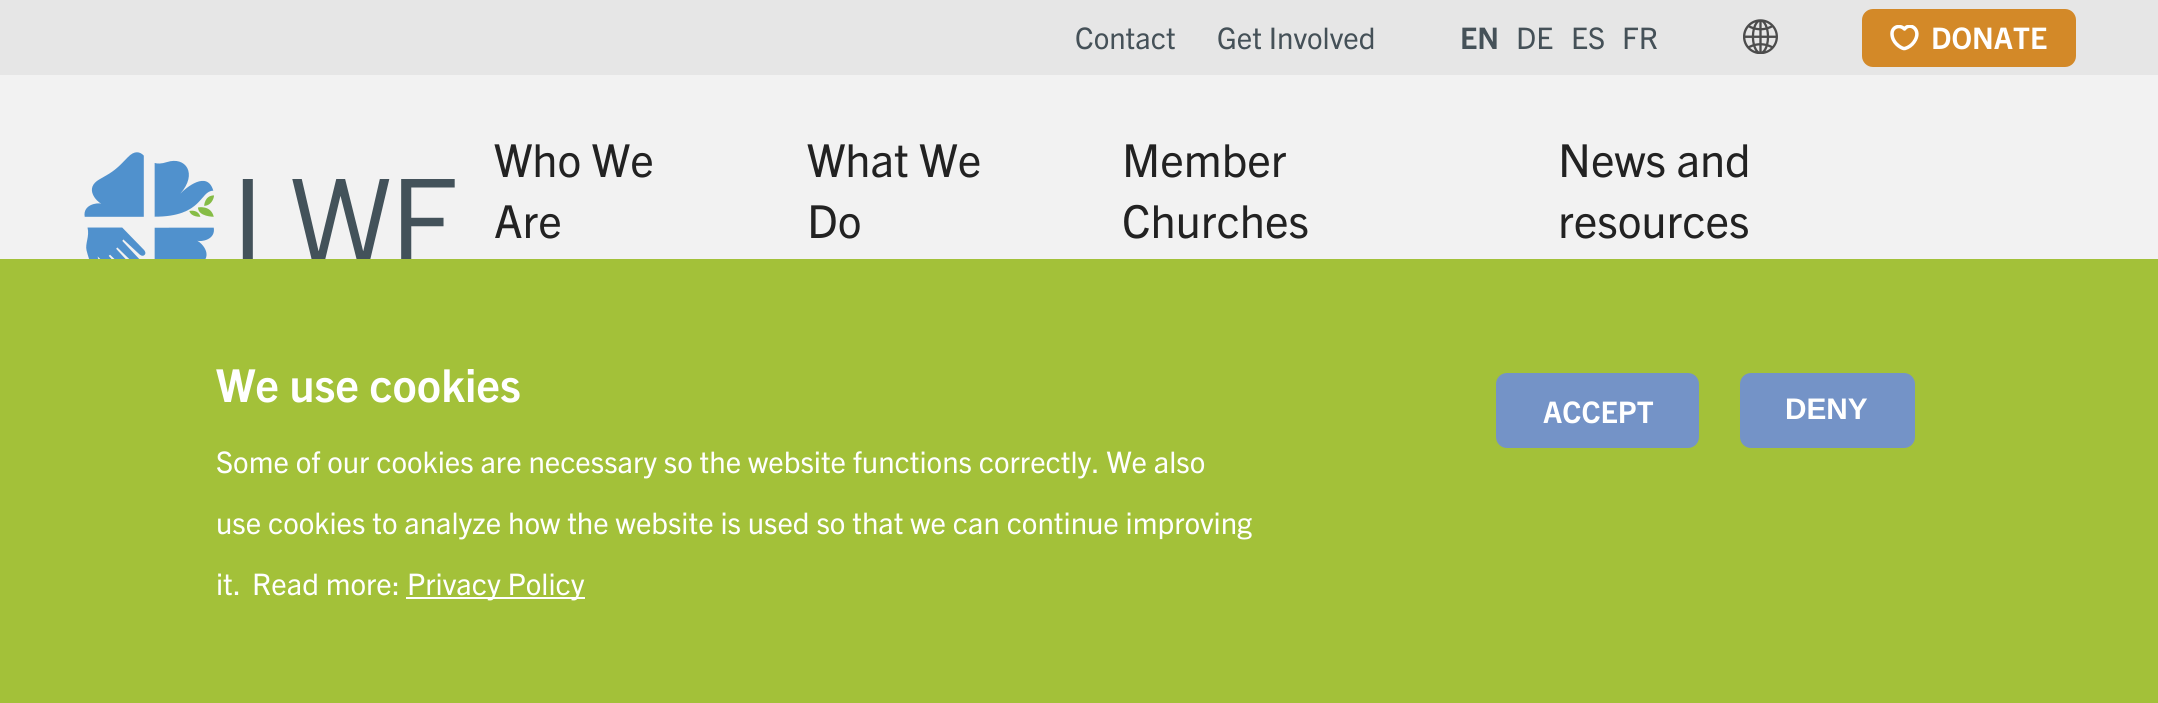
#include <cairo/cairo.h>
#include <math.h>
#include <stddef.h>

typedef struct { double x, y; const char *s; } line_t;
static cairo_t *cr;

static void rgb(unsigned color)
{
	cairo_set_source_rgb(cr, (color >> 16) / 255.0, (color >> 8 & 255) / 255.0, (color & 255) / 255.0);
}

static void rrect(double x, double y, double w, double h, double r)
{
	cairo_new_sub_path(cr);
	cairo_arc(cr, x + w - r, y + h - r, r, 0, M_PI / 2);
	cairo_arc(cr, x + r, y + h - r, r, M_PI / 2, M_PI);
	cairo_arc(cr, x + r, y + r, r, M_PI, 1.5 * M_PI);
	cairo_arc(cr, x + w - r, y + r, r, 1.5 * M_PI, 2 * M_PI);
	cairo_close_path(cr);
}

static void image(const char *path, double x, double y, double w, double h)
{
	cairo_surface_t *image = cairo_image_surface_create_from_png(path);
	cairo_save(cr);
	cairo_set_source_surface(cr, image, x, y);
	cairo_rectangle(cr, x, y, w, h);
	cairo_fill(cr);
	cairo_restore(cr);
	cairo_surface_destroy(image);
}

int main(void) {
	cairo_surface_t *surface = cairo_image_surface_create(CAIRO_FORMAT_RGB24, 2158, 703);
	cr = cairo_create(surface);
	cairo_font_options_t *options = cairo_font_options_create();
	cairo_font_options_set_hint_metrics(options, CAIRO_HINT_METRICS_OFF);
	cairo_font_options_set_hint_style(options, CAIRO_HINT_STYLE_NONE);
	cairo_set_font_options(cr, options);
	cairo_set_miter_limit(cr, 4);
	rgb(0xf2f2f2);
	cairo_paint(cr);
	rgb(0xe6e6e6);
	cairo_rectangle(cr, 0, 0, 2158, 75);
	cairo_fill(cr);
	image("img/1.png", 1743, 19, 35, 35);
	rgb(0xd38928);
	rrect(1862, 9, 214, 58, 11);
	cairo_fill(cr);
	cairo_save(cr);
	cairo_rectangle(cr, 1890, 25, 30, 26);
	cairo_clip(cr);
	cairo_new_path(cr);
	cairo_move_to(cr, 1905, 48.5);
	cairo_line_to(cr, 1903.5, 48.5);
	cairo_curve_to(cr, 1900, 47.5, 1892, 42.5, 1892, 33.5);
	cairo_curve_to(cr, 1892, 29.5, 1895, 26.5, 1899, 26.5);
	cairo_curve_to(cr, 1901, 26.5, 1903, 27.5, 1904.5, 29);
	cairo_curve_to(cr, 1910, 21.5, 1922.5, 30, 1914, 42);
	cairo_curve_to(cr, 1912, 45, 1908.5, 47.5, 1905, 48.5);
	cairo_close_path(cr);
	rgb(0xffffff);
	cairo_set_line_width(cr, 3.5);
	cairo_set_line_cap(cr, CAIRO_LINE_CAP_ROUND);
	cairo_set_line_join(cr, CAIRO_LINE_JOIN_ROUND);
	cairo_stroke(cr);
	cairo_restore(cr);
	image("img/2.png", 84, 152, 371, 107);
	rgb(0xa3c139);
	cairo_rectangle(cr, 0, 259, 2158, 444);
	cairo_fill(cr);
	rgb(0xffffff);
	cairo_rectangle(cr, 406, 597, 179, 2);
	cairo_fill(cr);
	rgb(0x7493c7);
	rrect(1498, 375, 199, 71, 9);
	cairo_fill_preserve(cr);
	cairo_set_line_width(cr, 4);
	cairo_stroke(cr);
	rrect(1742, 375, 171, 71, 9);
	cairo_fill_preserve(cr);
	cairo_stroke(cr);
	cairo_select_font_face(cr, "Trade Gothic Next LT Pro", CAIRO_FONT_SLANT_NORMAL, CAIRO_FONT_WEIGHT_NORMAL);
	cairo_set_font_size(cr, 29.75);
	rgb(0x455158);
	cairo_move_to(cr, 1075, 49);
	cairo_show_text(cr, "Contact");
	cairo_move_to(cr, 1217, 49);
	cairo_show_text(cr, "Get Involved");
	cairo_select_font_face(cr, "Trade Gothic Next LT Pro", CAIRO_FONT_SLANT_NORMAL, CAIRO_FONT_WEIGHT_BOLD);
	cairo_move_to(cr, 1460, 49);
	cairo_show_text(cr, "EN");
	cairo_select_font_face(cr, "Trade Gothic Next LT Pro", CAIRO_FONT_SLANT_NORMAL, CAIRO_FONT_WEIGHT_NORMAL);
	{
		static const line_t items[] = {
			{1516, 49, "DE"},
			{1571, 49, "ES"},
			{1622, 49, "FR"},
		};
		for (size_t i = 0; i < sizeof items / sizeof *items; i++) {
			cairo_move_to(cr, items[i].x, items[i].y);
			cairo_show_text(cr, items[i].s);
		}
	}
	cairo_select_font_face(cr, "Trade Gothic Next LT Pro", CAIRO_FONT_SLANT_NORMAL, CAIRO_FONT_WEIGHT_BOLD);
	rgb(0xffffff);
	cairo_move_to(cr, 1931, 49);
	cairo_show_text(cr, "DONATE");
	cairo_select_font_face(cr, "Trade Gothic Next LT Pro", CAIRO_FONT_SLANT_NORMAL, CAIRO_FONT_WEIGHT_NORMAL);
	cairo_set_font_size(cr, 45.5);
	rgb(0x222222);
	{
		static const line_t items[] = {
			{494, 177, "Who We"},
			{494, 238, "Are"},
			{807, 177, "What We"},
			{807, 238, "Do"},
			{1122, 177, "Member"},
			{1122, 238, "Churches"},
			{1558, 177, "News and"},
			{1558, 238, "resources"},
		};
		for (size_t i = 0; i < sizeof items / sizeof *items; i++) {
			cairo_move_to(cr, items[i].x, items[i].y);
			cairo_show_text(cr, items[i].s);
		}
	}
	cairo_select_font_face(cr, "Trade Gothic Next LT Pro", CAIRO_FONT_SLANT_NORMAL, CAIRO_FONT_WEIGHT_BOLD);
	rgb(0xffffff);
	cairo_move_to(cr, 216, 402);
	cairo_show_text(cr, "We use cookies");
	cairo_select_font_face(cr, "Trade Gothic Next LT Pro", CAIRO_FONT_SLANT_NORMAL, CAIRO_FONT_WEIGHT_NORMAL);
	cairo_set_font_size(cr, 29.75);
	{
		static const line_t items[] = {
			{216, 473, "Some of our cookies are necessary so the website functions correctly. We also"},
			{216, 534, "use cookies to analyze how the website is used so that we can continue improving"},
			{216, 595, "it."},
			{252, 595, "Read more:"},
			{407, 595, "Privacy Policy"},
		};
		for (size_t i = 0; i < sizeof items / sizeof *items; i++) {
			cairo_move_to(cr, items[i].x, items[i].y);
			cairo_show_text(cr, items[i].s);
		}
	}
	cairo_select_font_face(cr, "Trade Gothic Next LT Pro", CAIRO_FONT_SLANT_NORMAL, CAIRO_FONT_WEIGHT_BOLD);
	cairo_move_to(cr, 1543, 423);
	cairo_show_text(cr, "ACCEPT");
	cairo_select_font_face(cr, "Liberation Sans", CAIRO_FONT_SLANT_NORMAL, CAIRO_FONT_WEIGHT_BOLD);
	cairo_move_to(cr, 1785, 419);
	cairo_show_text(cr, "DENY");
	cairo_surface_write_to_png(surface, "page.png");
	cairo_font_options_destroy(options);
	cairo_destroy(cr);
	cairo_surface_destroy(surface);
	return 0;
}
